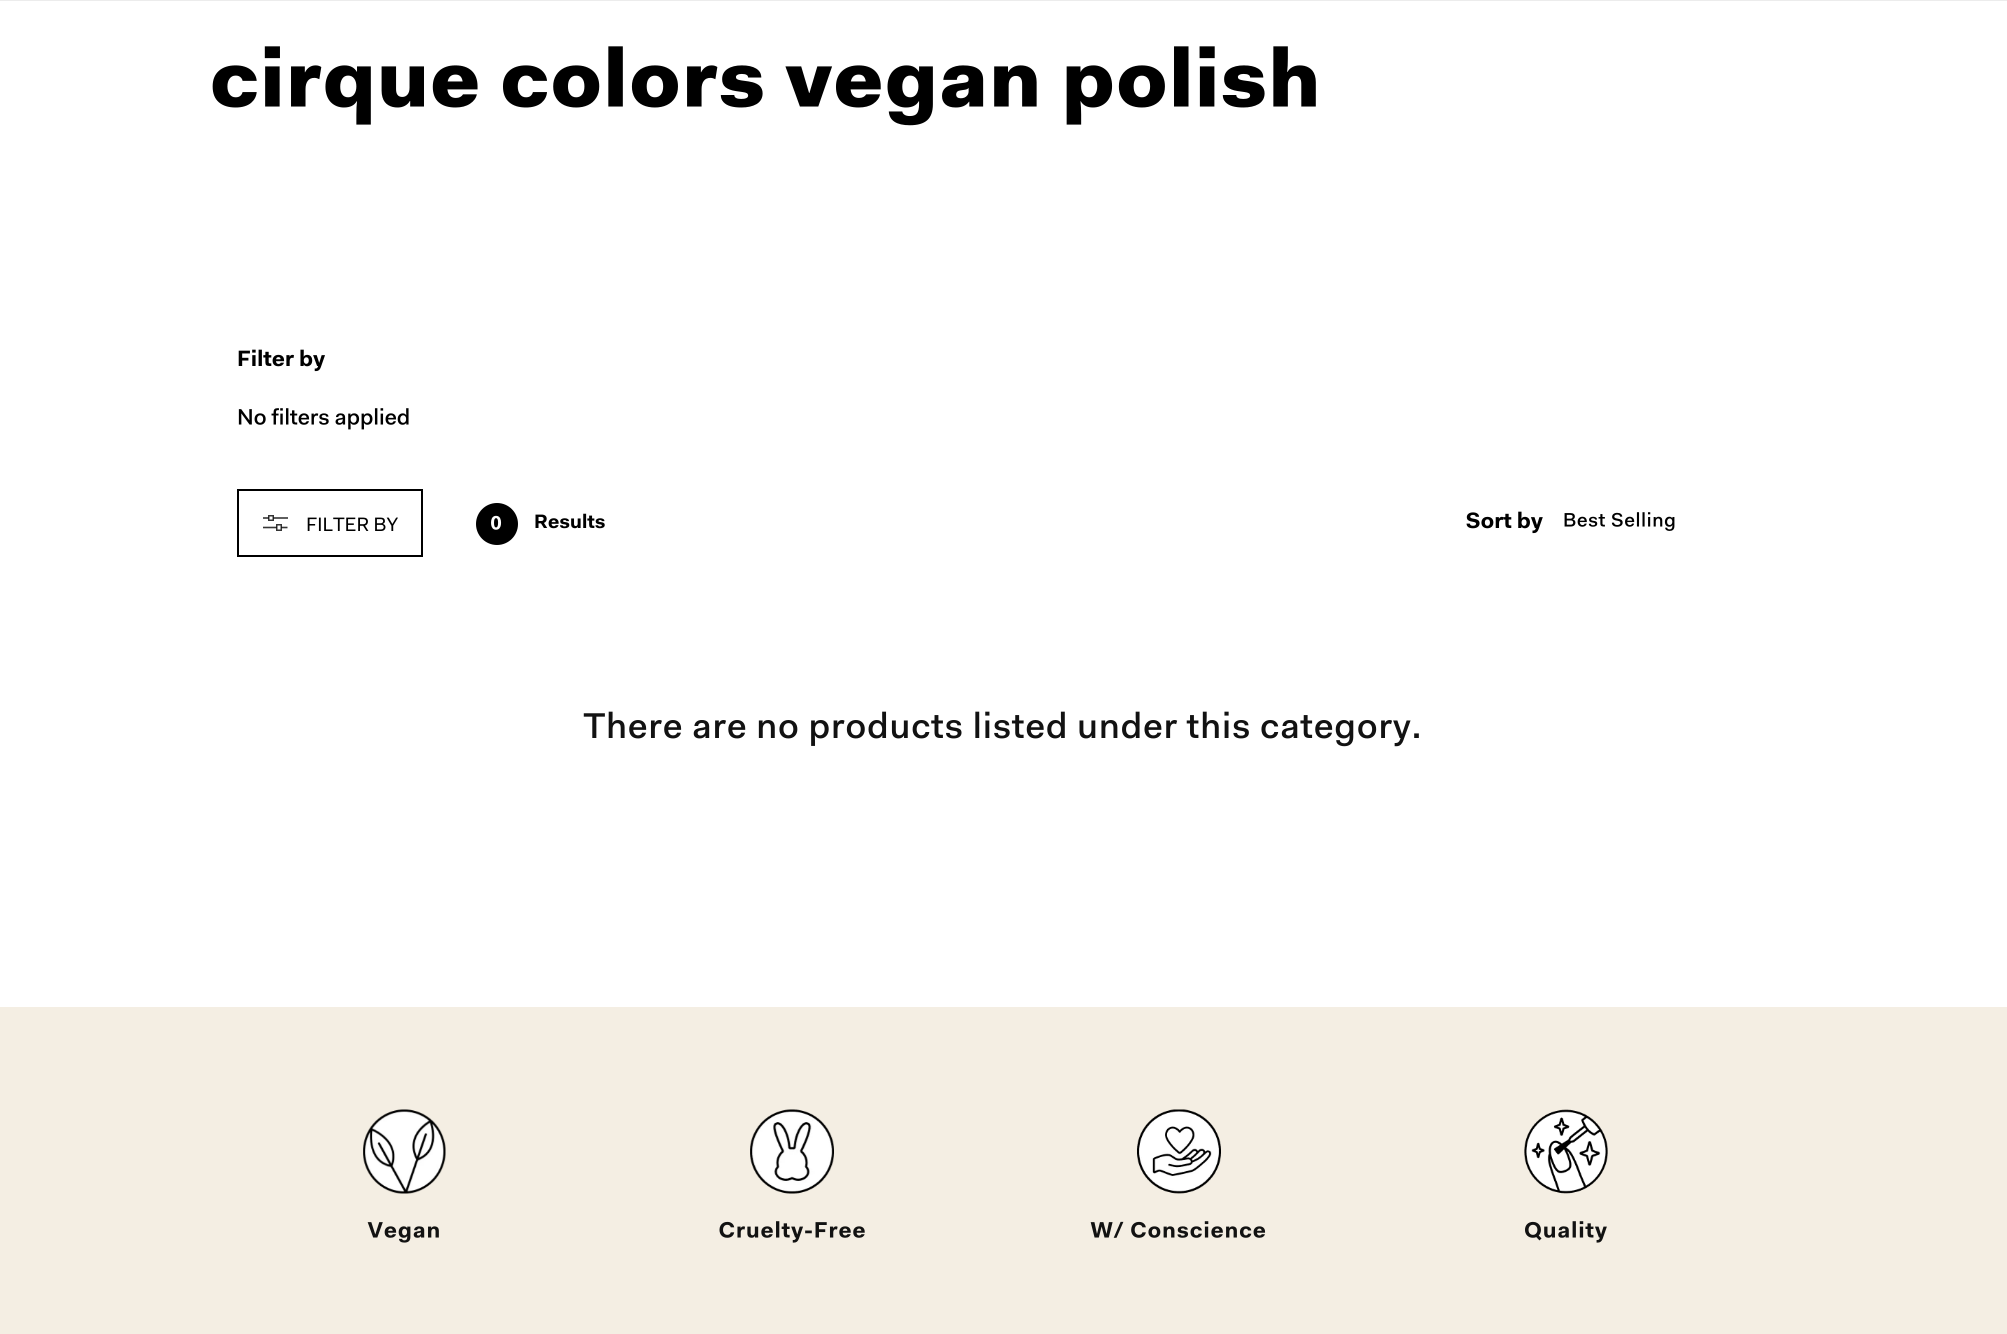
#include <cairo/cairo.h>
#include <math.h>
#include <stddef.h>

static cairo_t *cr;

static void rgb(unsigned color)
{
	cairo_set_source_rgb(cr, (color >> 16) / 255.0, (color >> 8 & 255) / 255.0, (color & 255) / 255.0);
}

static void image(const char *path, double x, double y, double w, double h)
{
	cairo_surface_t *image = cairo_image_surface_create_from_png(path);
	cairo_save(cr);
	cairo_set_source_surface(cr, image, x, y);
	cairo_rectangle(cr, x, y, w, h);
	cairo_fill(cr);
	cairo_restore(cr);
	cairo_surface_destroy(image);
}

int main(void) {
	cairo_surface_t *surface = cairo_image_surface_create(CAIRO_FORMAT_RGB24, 2007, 1334);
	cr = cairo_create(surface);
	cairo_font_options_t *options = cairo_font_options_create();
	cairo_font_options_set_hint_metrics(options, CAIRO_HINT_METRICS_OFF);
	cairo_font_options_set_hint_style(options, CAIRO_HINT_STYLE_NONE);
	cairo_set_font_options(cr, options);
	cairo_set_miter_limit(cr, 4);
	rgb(0xffffff);
	cairo_paint(cr);
	rgb(0xececec);
	cairo_rectangle(cr, 0, 0, 2007, 1);
	cairo_fill(cr);
	image("img/1.png", 212, 46, 1104, 80);
	image("img/2.png", 238, 349, 87, 23);
	image("img/3.png", 238, 408, 171, 22);
	cairo_rectangle(cr, 238, 490, 184, 66);
	rgb(0x000000);
	cairo_stroke(cr);
	rgb(0x5e5e5e);
	cairo_rectangle(cr, 263, 517, 25, 2);
	cairo_fill(cr);
	cairo_save(cr);
	cairo_rectangle(cr, 263, 513, 25, 20);
	cairo_clip(cr);
	cairo_new_path(cr);
	cairo_move_to(cr, 262.5, 527.5);
	cairo_line_to(cr, 287.5, 527.5);
	rgb(0x363636);
	cairo_set_line_width(cr, 1.6);
	cairo_stroke(cr);
	cairo_restore(cr);
	rgb(0xffffff);
	cairo_rectangle(cr, 269, 517, 4, 2);
	cairo_fill(cr);
	cairo_rectangle(cr, 268.75, 515.75, 4.5, 4.5);
	cairo_set_source_rgba(cr, 0.071, 0.071, 0.071, 0.85);
	cairo_set_line_width(cr, 1.5);
	cairo_stroke(cr);
	rgb(0xffffff);
	cairo_rectangle(cr, 277, 525, 4, 5);
	cairo_fill(cr);
	cairo_rectangle(cr, 276.75, 524.75, 4.5, 5.5);
	cairo_set_source_rgba(cr, 0.071, 0.071, 0.071, 0.85);
	cairo_stroke(cr);
	image("img/4.png", 307, 517, 91, 14);
	rgb(0x000000);
	cairo_arc(cr, 497, 524, 21, 0, 2 * M_PI);
	cairo_fill(cr);
	image("img/5.png", 491, 515, 11, 15);
	image("img/6.png", 535, 513, 70, 16);
	image("img/7.png", 1466, 511, 77, 23);
	image("img/8.png", 1564, 512, 111, 19);
	image("img/9.png", 583, 711, 836, 36);
	rgb(0xf4eee3);
	cairo_rectangle(cr, 0, 1007, 2007, 327);
	cairo_fill(cr);
	image("img/10.png", 363, 1109, 83, 85);
	image("img/11.png", 367, 1222, 72, 21);
	image("img/12.png", 750, 1109, 84, 85);
	image("img/13.png", 719, 1221, 146, 22);
	image("img/14.png", 1137, 1109, 84, 85);
	image("img/15.png", 1090, 1221, 176, 17);
	image("img/16.png", 1524, 1109, 84, 85);
	image("img/17.png", 1525, 1221, 82, 22);
	cairo_surface_write_to_png(surface, "page.png");
	cairo_font_options_destroy(options);
	cairo_destroy(cr);
	cairo_surface_destroy(surface);
	return 0;
}
